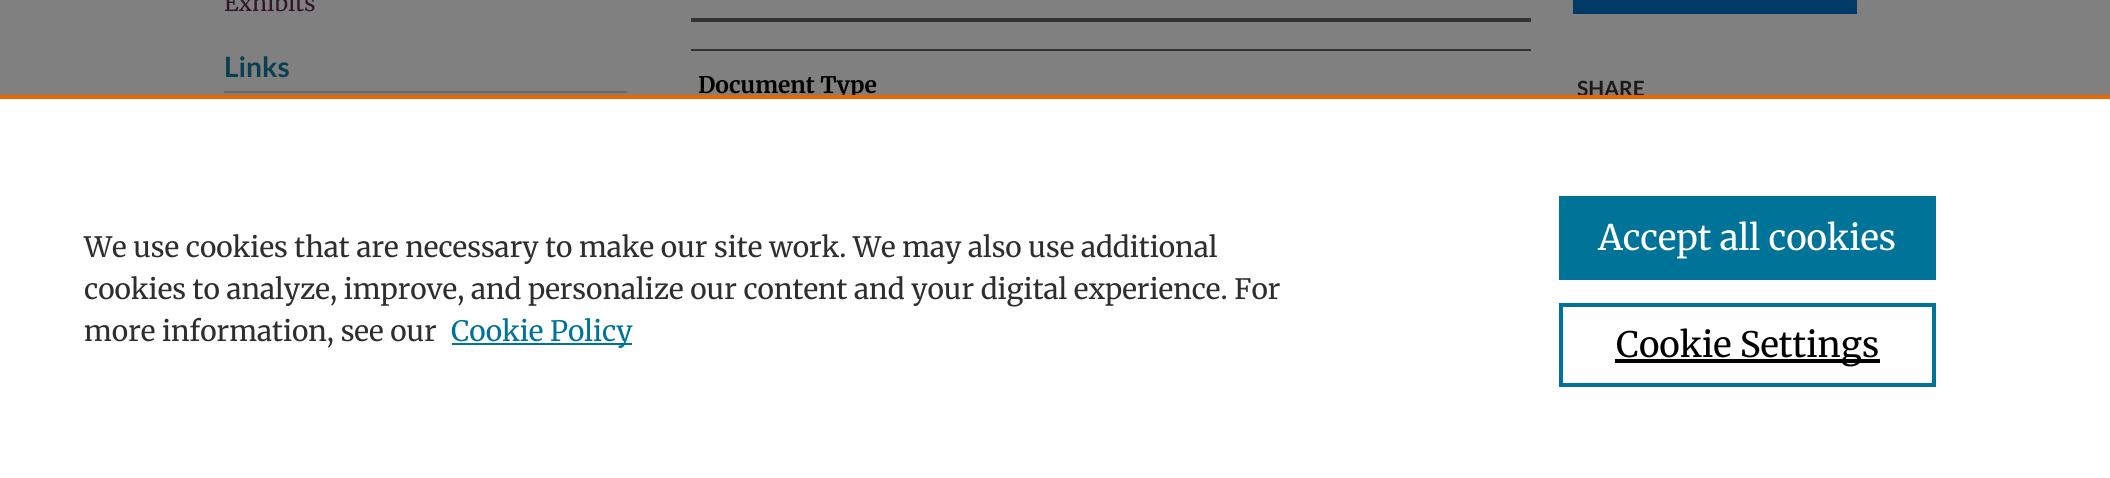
#include <cairo/cairo.h>
#include <math.h>
#include <stddef.h>

typedef struct { double x, y; const char *s; } line_t;
typedef struct { double x, y, w, h; unsigned color; } box_t;
static cairo_t *cr;

static void rgb(unsigned color)
{
	cairo_set_source_rgb(cr, (color >> 16) / 255.0, (color >> 8 & 255) / 255.0, (color & 255) / 255.0);
}

int main(void) {
	cairo_surface_t *surface = cairo_image_surface_create(CAIRO_FORMAT_RGB24, 2110, 478);
	cr = cairo_create(surface);
	cairo_font_options_t *options = cairo_font_options_create();
	cairo_font_options_set_hint_metrics(options, CAIRO_HINT_METRICS_OFF);
	cairo_font_options_set_hint_style(options, CAIRO_HINT_STYLE_NONE);
	cairo_set_font_options(cr, options);
	cairo_set_miter_limit(cr, 4);
	rgb(0x808080);
	cairo_paint(cr);
	{
		static const box_t items[] = {
			{224, 91, 403, 2, 0x696969},
			{691, 18, 840, 4, 0x333333},
			{691, 49, 840, 2, 0x333333},
			{1573, 0, 284, 14, 0x003a66},
			{0, 99, 2110, 379, 0xffffff},
			{452, 343, 180, 2, 0x007398},
			{1559, 196, 377, 84, 0x007398},
		};
		for (size_t i = 0; i < sizeof items / sizeof *items; i++) {
			rgb(items[i].color);
			cairo_rectangle(cr, items[i].x, items[i].y, items[i].w, items[i].h);
			cairo_fill(cr);
		}
	}
	cairo_rectangle(cr, 1561, 305, 373, 80);
	cairo_set_line_width(cr, 4);
	cairo_stroke(cr);
	rgb(0x000000);
	cairo_rectangle(cr, 1615, 359, 265, 4);
	cairo_fill(cr);
	cairo_select_font_face(cr, "Merriweather", CAIRO_FONT_SLANT_NORMAL, CAIRO_FONT_WEIGHT_NORMAL);
	cairo_set_font_size(cr, 22.75);
	rgb(0x321628);
	cairo_move_to(cr, 224, 11);
	cairo_show_text(cr, "Exhibits");
	cairo_select_font_face(cr, "Lato", CAIRO_FONT_SLANT_NORMAL, CAIRO_FONT_WEIGHT_BOLD);
	cairo_set_font_size(cr, 28);
	rgb(0x084052);
	cairo_move_to(cr, 224, 77);
	cairo_show_text(cr, "Links");
	cairo_select_font_face(cr, "Merriweather", CAIRO_FONT_SLANT_NORMAL, CAIRO_FONT_WEIGHT_BOLD);
	cairo_set_font_size(cr, 22.75);
	rgb(0x000000);
	cairo_move_to(cr, 698, 93);
	cairo_show_text(cr, "Document Type");
	cairo_select_font_face(cr, "Lato", CAIRO_FONT_SLANT_NORMAL, CAIRO_FONT_WEIGHT_BOLD);
	cairo_set_font_size(cr, 21);
	rgb(0x1a1a1a);
	cairo_move_to(cr, 1577, 96);
	cairo_show_text(cr, "SHARE");
	rgb(0xeb6500);
	cairo_rectangle(cr, 0, 95, 2110, 4);
	cairo_fill(cr);
	cairo_select_font_face(cr, "Merriweather", CAIRO_FONT_SLANT_NORMAL, CAIRO_FONT_WEIGHT_NORMAL);
	cairo_set_font_size(cr, 28);
	rgb(0x2e2e2e);
	{
		static const line_t items[] = {
			{84, 257, "We use cookies that are necessary to make our site work. We may also use additional"},
			{84, 299, "cookies to analyze, improve, and personalize our content and your digital experience. For"},
			{84, 341, "more information, see our"},
		};
		for (size_t i = 0; i < sizeof items / sizeof *items; i++) {
			cairo_move_to(cr, items[i].x, items[i].y);
			cairo_show_text(cr, items[i].s);
		}
	}
	rgb(0x007398);
	cairo_move_to(cr, 451, 341);
	cairo_show_text(cr, "Cookie Policy");
	cairo_set_font_size(cr, 35);
	rgb(0xffffff);
	cairo_move_to(cr, 1598, 250);
	cairo_show_text(cr, "Accept all cookies");
	rgb(0x000000);
	cairo_move_to(cr, 1616, 357);
	cairo_show_text(cr, "Cookie Settings");
	cairo_surface_write_to_png(surface, "page.png");
	cairo_font_options_destroy(options);
	cairo_destroy(cr);
	cairo_surface_destroy(surface);
	return 0;
}
